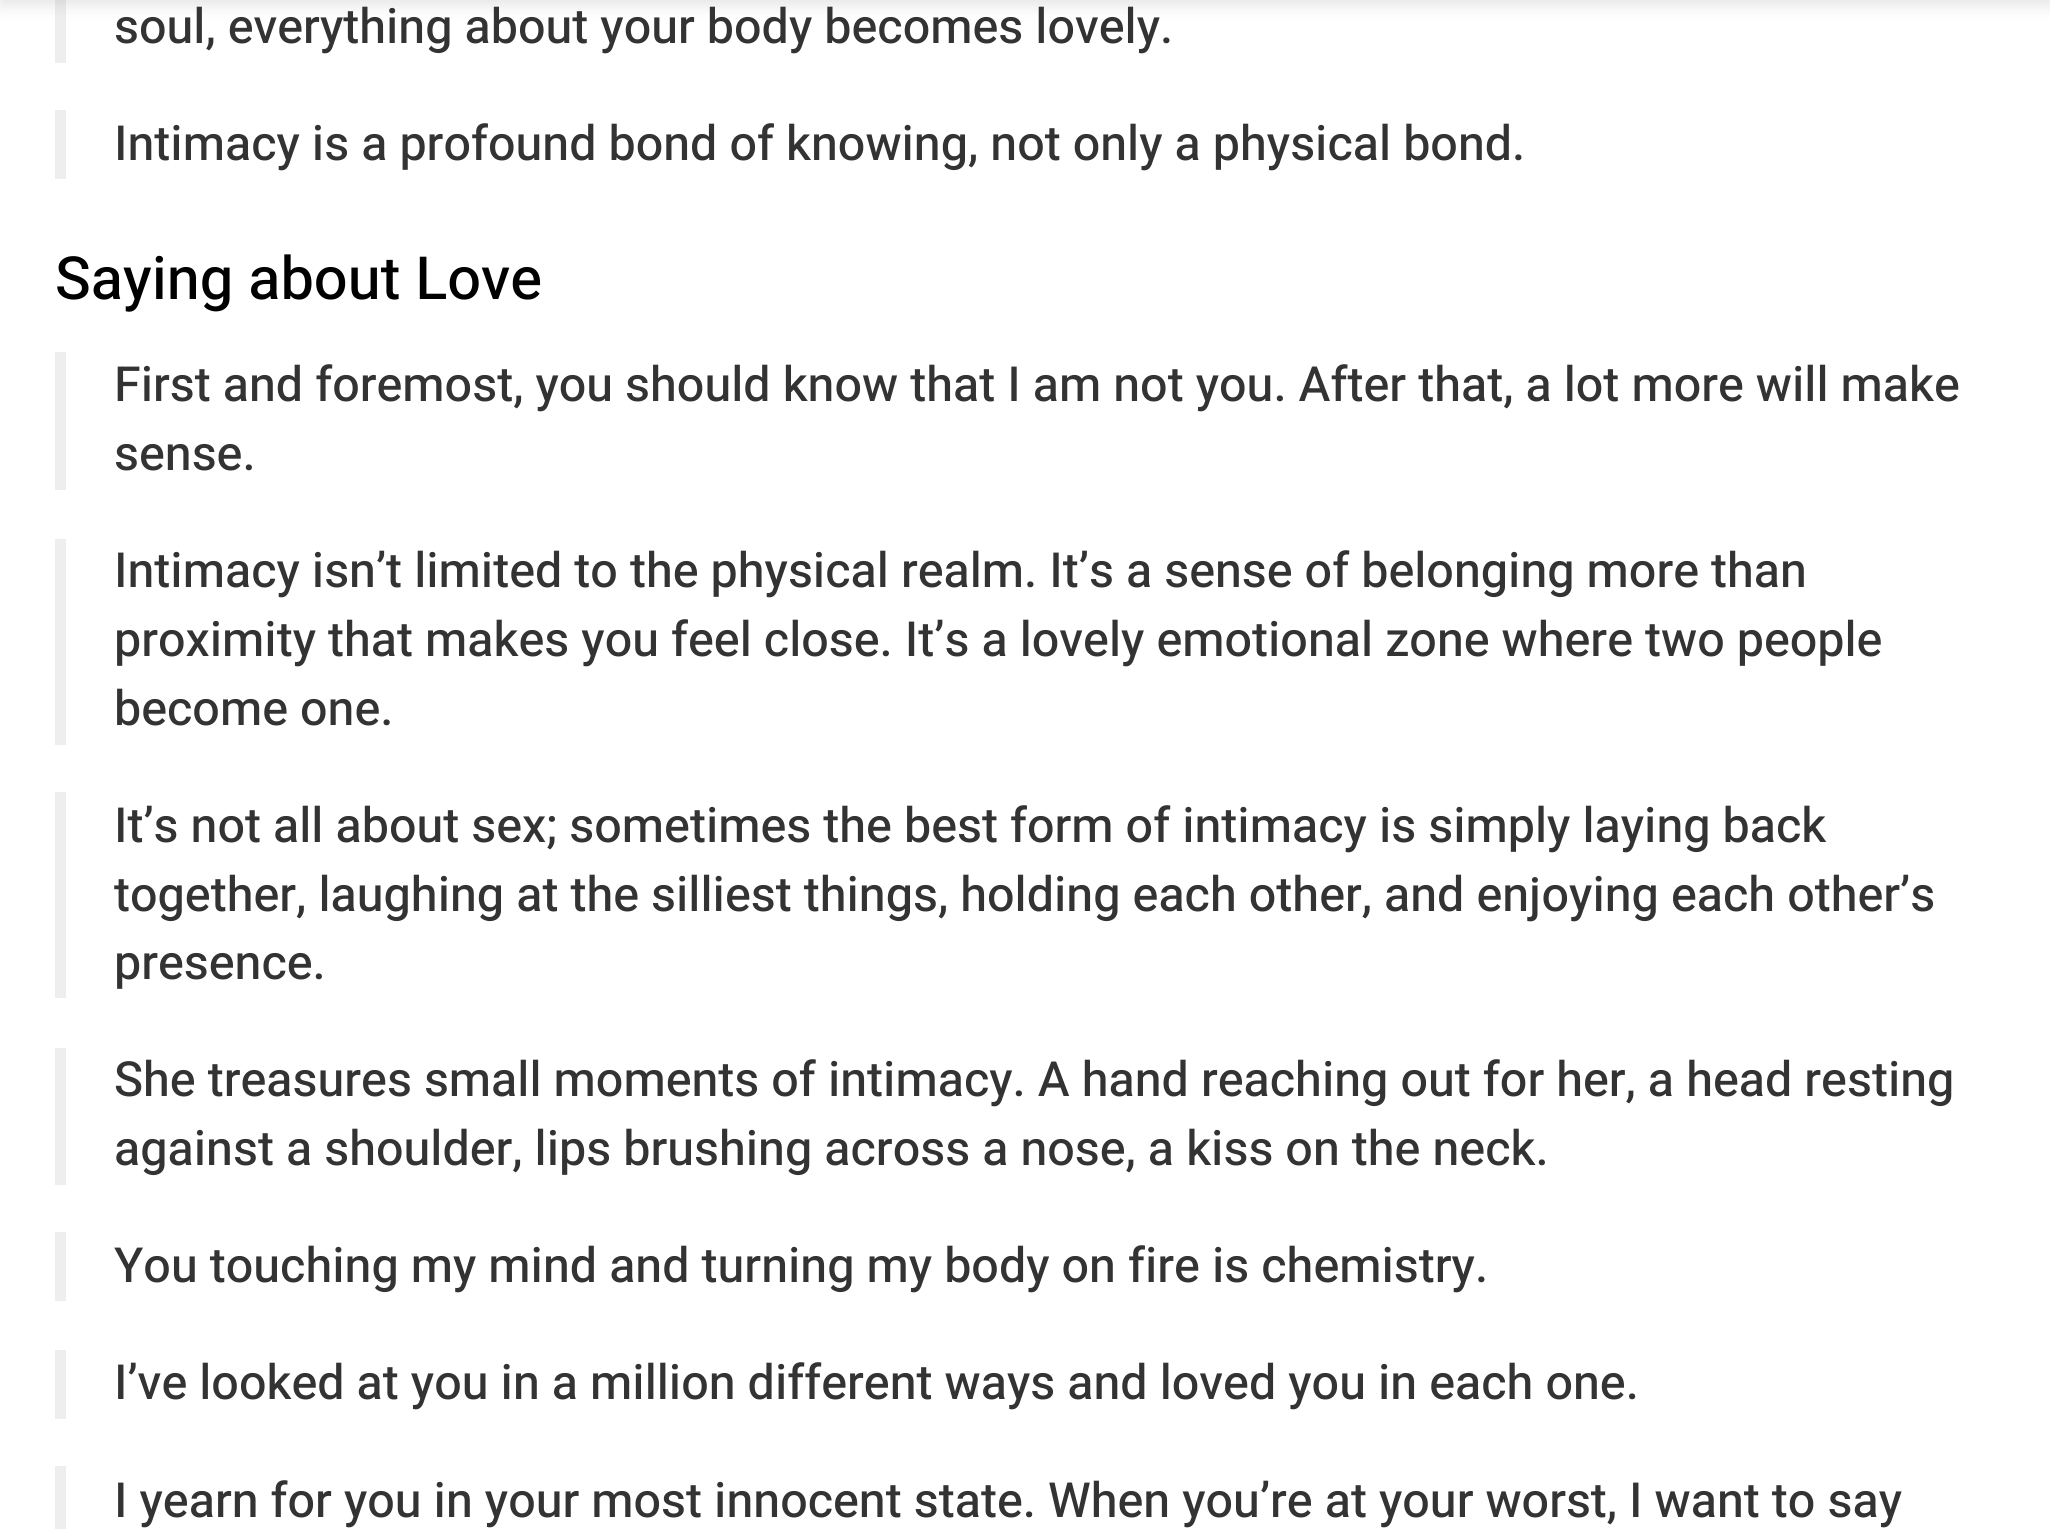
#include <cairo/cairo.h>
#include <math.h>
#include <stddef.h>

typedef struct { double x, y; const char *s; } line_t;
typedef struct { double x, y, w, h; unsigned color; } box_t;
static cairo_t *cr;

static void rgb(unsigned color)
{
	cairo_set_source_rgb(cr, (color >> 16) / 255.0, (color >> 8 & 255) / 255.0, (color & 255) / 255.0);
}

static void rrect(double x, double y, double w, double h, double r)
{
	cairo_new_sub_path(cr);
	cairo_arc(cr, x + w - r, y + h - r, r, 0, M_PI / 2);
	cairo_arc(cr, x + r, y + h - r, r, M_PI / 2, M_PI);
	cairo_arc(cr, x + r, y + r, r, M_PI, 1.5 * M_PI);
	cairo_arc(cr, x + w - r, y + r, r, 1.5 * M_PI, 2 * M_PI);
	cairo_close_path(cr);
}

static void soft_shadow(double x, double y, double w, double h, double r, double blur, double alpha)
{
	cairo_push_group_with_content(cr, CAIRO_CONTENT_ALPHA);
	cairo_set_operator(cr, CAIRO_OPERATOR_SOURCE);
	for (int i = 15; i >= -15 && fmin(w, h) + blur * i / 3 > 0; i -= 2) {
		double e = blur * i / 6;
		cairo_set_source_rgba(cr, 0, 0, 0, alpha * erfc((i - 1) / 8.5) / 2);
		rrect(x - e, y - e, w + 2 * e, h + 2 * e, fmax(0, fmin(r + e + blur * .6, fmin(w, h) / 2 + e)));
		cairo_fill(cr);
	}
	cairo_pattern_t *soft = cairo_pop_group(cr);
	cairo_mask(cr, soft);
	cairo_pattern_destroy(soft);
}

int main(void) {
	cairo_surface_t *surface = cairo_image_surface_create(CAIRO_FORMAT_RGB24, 2050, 1529);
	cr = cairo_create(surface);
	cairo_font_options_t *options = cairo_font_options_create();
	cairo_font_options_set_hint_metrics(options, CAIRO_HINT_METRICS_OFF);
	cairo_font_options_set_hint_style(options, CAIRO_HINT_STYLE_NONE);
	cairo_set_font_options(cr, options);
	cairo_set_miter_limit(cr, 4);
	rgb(0xffffff);
	cairo_paint(cr);
	rgb(0xeeeeee);
	cairo_rectangle(cr, 55, 0, 11, 63);
	cairo_fill(cr);
	rgb(0x000000);
	soft_shadow(0, -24, 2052, 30, 0, 8, 0.1);
	{
		static const box_t items[] = {
			{55, 110, 11, 69, 0xeeeeee},
			{55, 352, 11, 138, 0xeeeeee},
			{55, 539, 11, 206, 0xeeeeee},
			{55, 792, 11, 206, 0xeeeeee},
			{55, 1048, 11, 137, 0xeeeeee},
			{55, 1232, 11, 69, 0xeeeeee},
			{55, 1350, 11, 69, 0xeeeeee},
			{55, 1466, 11, 63, 0xeeeeee},
		};
		for (size_t i = 0; i < sizeof items / sizeof *items; i++) {
			rgb(items[i].color);
			cairo_rectangle(cr, items[i].x, items[i].y, items[i].w, items[i].h);
			cairo_fill(cr);
		}
	}
	cairo_select_font_face(cr, "Heebo Medium", CAIRO_FONT_SLANT_NORMAL, CAIRO_FONT_WEIGHT_NORMAL);
	cairo_set_font_size(cr, 48.4);
	rgb(0x333333);
	cairo_move_to(cr, 114, 43);
	cairo_show_text(cr, "soul, everything about your body becomes lovely.");
	cairo_move_to(cr, 114, 160);
	cairo_show_text(cr, "Intimacy is a profound bond of knowing, not only a physical bond.");
	cairo_set_font_size(cr, 59.5);
	rgb(0x000000);
	cairo_move_to(cr, 55, 299);
	cairo_show_text(cr, "Saying about Love");
	cairo_set_font_size(cr, 48.4);
	rgb(0x333333);
	{
		static const line_t items[] = {
			{114, 401, "First and foremost, you should know that I am not you. After that, a lot more will make"},
			{114, 470, "sense."},
			{114, 587, "Intimacy isn’t limited to the physical realm. It’s a sense of belonging more than"},
			{114, 656, "proximity that makes you feel close. It’s a lovely emotional zone where two people"},
			{114, 725, "become one."},
			{114, 842, "It’s not all about sex; sometimes the best form of intimacy is simply laying back"},
			{114, 911, "together, laughing at the silliest things, holding each other, and enjoying each other’s"},
			{114, 979, "presence."},
			{114, 1096, "She treasures small moments of intimacy. A hand reaching out for her, a head resting"},
			{114, 1165, "against a shoulder, lips brushing across a nose, a kiss on the neck."},
			{114, 1282, "You touching my mind and turning my body on fire is chemistry."},
			{114, 1399, "I’ve looked at you in a million different ways and loved you in each one."},
			{114, 1517, "I yearn for you in your most innocent state. When you’re at your worst, I want to say"},
		};
		for (size_t i = 0; i < sizeof items / sizeof *items; i++) {
			cairo_move_to(cr, items[i].x, items[i].y);
			cairo_show_text(cr, items[i].s);
		}
	}
	cairo_surface_write_to_png(surface, "page.png");
	cairo_font_options_destroy(options);
	cairo_destroy(cr);
	cairo_surface_destroy(surface);
	return 0;
}
